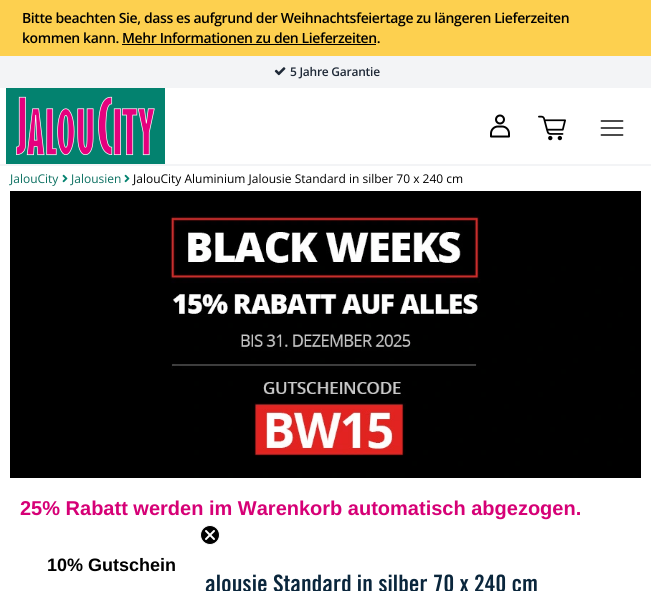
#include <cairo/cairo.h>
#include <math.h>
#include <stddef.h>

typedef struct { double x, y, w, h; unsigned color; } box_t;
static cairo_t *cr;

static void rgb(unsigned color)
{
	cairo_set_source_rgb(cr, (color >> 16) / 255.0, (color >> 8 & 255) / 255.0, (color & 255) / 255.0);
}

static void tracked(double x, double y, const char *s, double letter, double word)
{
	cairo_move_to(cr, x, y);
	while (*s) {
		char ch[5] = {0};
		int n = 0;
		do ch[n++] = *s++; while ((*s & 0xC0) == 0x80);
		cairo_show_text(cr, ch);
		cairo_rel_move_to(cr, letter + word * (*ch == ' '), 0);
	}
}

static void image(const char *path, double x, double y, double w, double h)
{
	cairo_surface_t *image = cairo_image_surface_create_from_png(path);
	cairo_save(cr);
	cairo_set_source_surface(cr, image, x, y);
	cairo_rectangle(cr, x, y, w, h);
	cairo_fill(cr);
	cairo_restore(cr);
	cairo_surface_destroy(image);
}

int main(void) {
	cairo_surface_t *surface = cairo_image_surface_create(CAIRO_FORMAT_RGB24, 651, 591);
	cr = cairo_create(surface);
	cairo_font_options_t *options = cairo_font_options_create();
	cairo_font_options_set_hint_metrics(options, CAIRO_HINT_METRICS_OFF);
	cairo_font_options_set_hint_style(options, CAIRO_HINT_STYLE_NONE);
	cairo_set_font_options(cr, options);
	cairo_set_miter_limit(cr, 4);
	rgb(0xffffff);
	cairo_paint(cr);
	{
		static const box_t items[] = {
			{0, 0, 651, 56, 0xfdd04f},
			{122, 44, 254, 1, 0x000000},
			{0, 56, 651, 32, 0xf3f4f6},
		};
		for (size_t i = 0; i < sizeof items / sizeof *items; i++) {
			rgb(items[i].color);
			cairo_rectangle(cr, items[i].x, items[i].y, items[i].w, items[i].h);
			cairo_fill(cr);
		}
	}
	image("img/1.png", 274, 67, 12, 9);
	cairo_rectangle(cr, 0, 164, 651, 2);
	cairo_fill(cr);
	rgb(0x03826f);
	cairo_rectangle(cr, 6, 88, 159, 76);
	cairo_fill(cr);
	image("img/2.png", 16, 96, 139, 60);
	image("img/3.png", 490, 114, 20, 24);
	image("img/4.png", 538, 115, 28, 26);
	cairo_new_path(cr);
	cairo_move_to(cr, 601.5, 121);
	cairo_line_to(cr, 622.5, 121);
	cairo_move_to(cr, 601.5, 128);
	cairo_line_to(cr, 622.5, 128);
	cairo_move_to(cr, 601.5, 135);
	cairo_line_to(cr, 622.5, 135);
	rgb(0x2f2f2f);
	cairo_set_line_width(cr, 1.8);
	cairo_set_line_cap(cr, CAIRO_LINE_CAP_ROUND);
	cairo_set_line_join(cr, CAIRO_LINE_JOIN_ROUND);
	cairo_stroke(cr);
	image("img/5.png", 62, 174, 6, 9);
	image("img/5.png", 124, 174, 6, 9);
	image("img/6.png", 10, 191, 631, 287);
	image("img/7.png", 200, 525, 20, 20);
	cairo_select_font_face(cr, "Open Sans SemiBold", CAIRO_FONT_SLANT_NORMAL, CAIRO_FONT_WEIGHT_NORMAL);
	cairo_set_font_size(cr, 14);
	rgb(0x000000);
	tracked(22, 23, "Bitte beachten Sie, dass es aufgrund der Weihnachtsfeiertage zu längeren Lieferzeiten", -0.4, 0);
	tracked(22, 43, "kommen kann. Mehr Informationen zu den Lieferzeiten.", -0.4, 0);
	cairo_set_font_size(cr, 12);
	rgb(0x1f2937);
	tracked(290, 76, "5 Jahre Garantie", -0.25, 0);
	cairo_select_font_face(cr, "Open Sans", CAIRO_FONT_SLANT_NORMAL, CAIRO_FONT_WEIGHT_NORMAL);
	rgb(0x0a6f60);
	cairo_move_to(cr, 10, 183);
	cairo_show_text(cr, "JalouCity");
	cairo_move_to(cr, 71, 183);
	cairo_show_text(cr, "Jalousien");
	rgb(0x000000);
	cairo_move_to(cr, 133, 183);
	cairo_show_text(cr, "JalouCity Aluminium Jalousie Standard in silber 70 x 240 cm");
	cairo_select_font_face(cr, "Liberation Sans", CAIRO_FONT_SLANT_NORMAL, CAIRO_FONT_WEIGHT_BOLD);
	cairo_set_font_size(cr, 20);
	rgb(0xd60076);
	cairo_move_to(cr, 20, 515);
	cairo_show_text(cr, "25% Rabatt werden im Warenkorb automatisch abgezogen.");
	cairo_select_font_face(cr, "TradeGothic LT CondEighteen", CAIRO_FONT_SLANT_NORMAL, CAIRO_FONT_WEIGHT_BOLD);
	cairo_set_font_size(cr, 24);
	rgb(0x0a263c);
	cairo_move_to(cr, 205, 592);
	cairo_show_text(cr, "alousie Standard in silber 70 x 240 cm");
	cairo_select_font_face(cr, "Liberation Sans", CAIRO_FONT_SLANT_NORMAL, CAIRO_FONT_WEIGHT_BOLD);
	cairo_set_font_size(cr, 18);
	rgb(0x000000);
	cairo_move_to(cr, 47, 571);
	cairo_show_text(cr, "10% Gutschein");
	cairo_surface_write_to_png(surface, "page.png");
	cairo_font_options_destroy(options);
	cairo_destroy(cr);
	cairo_surface_destroy(surface);
	return 0;
}
